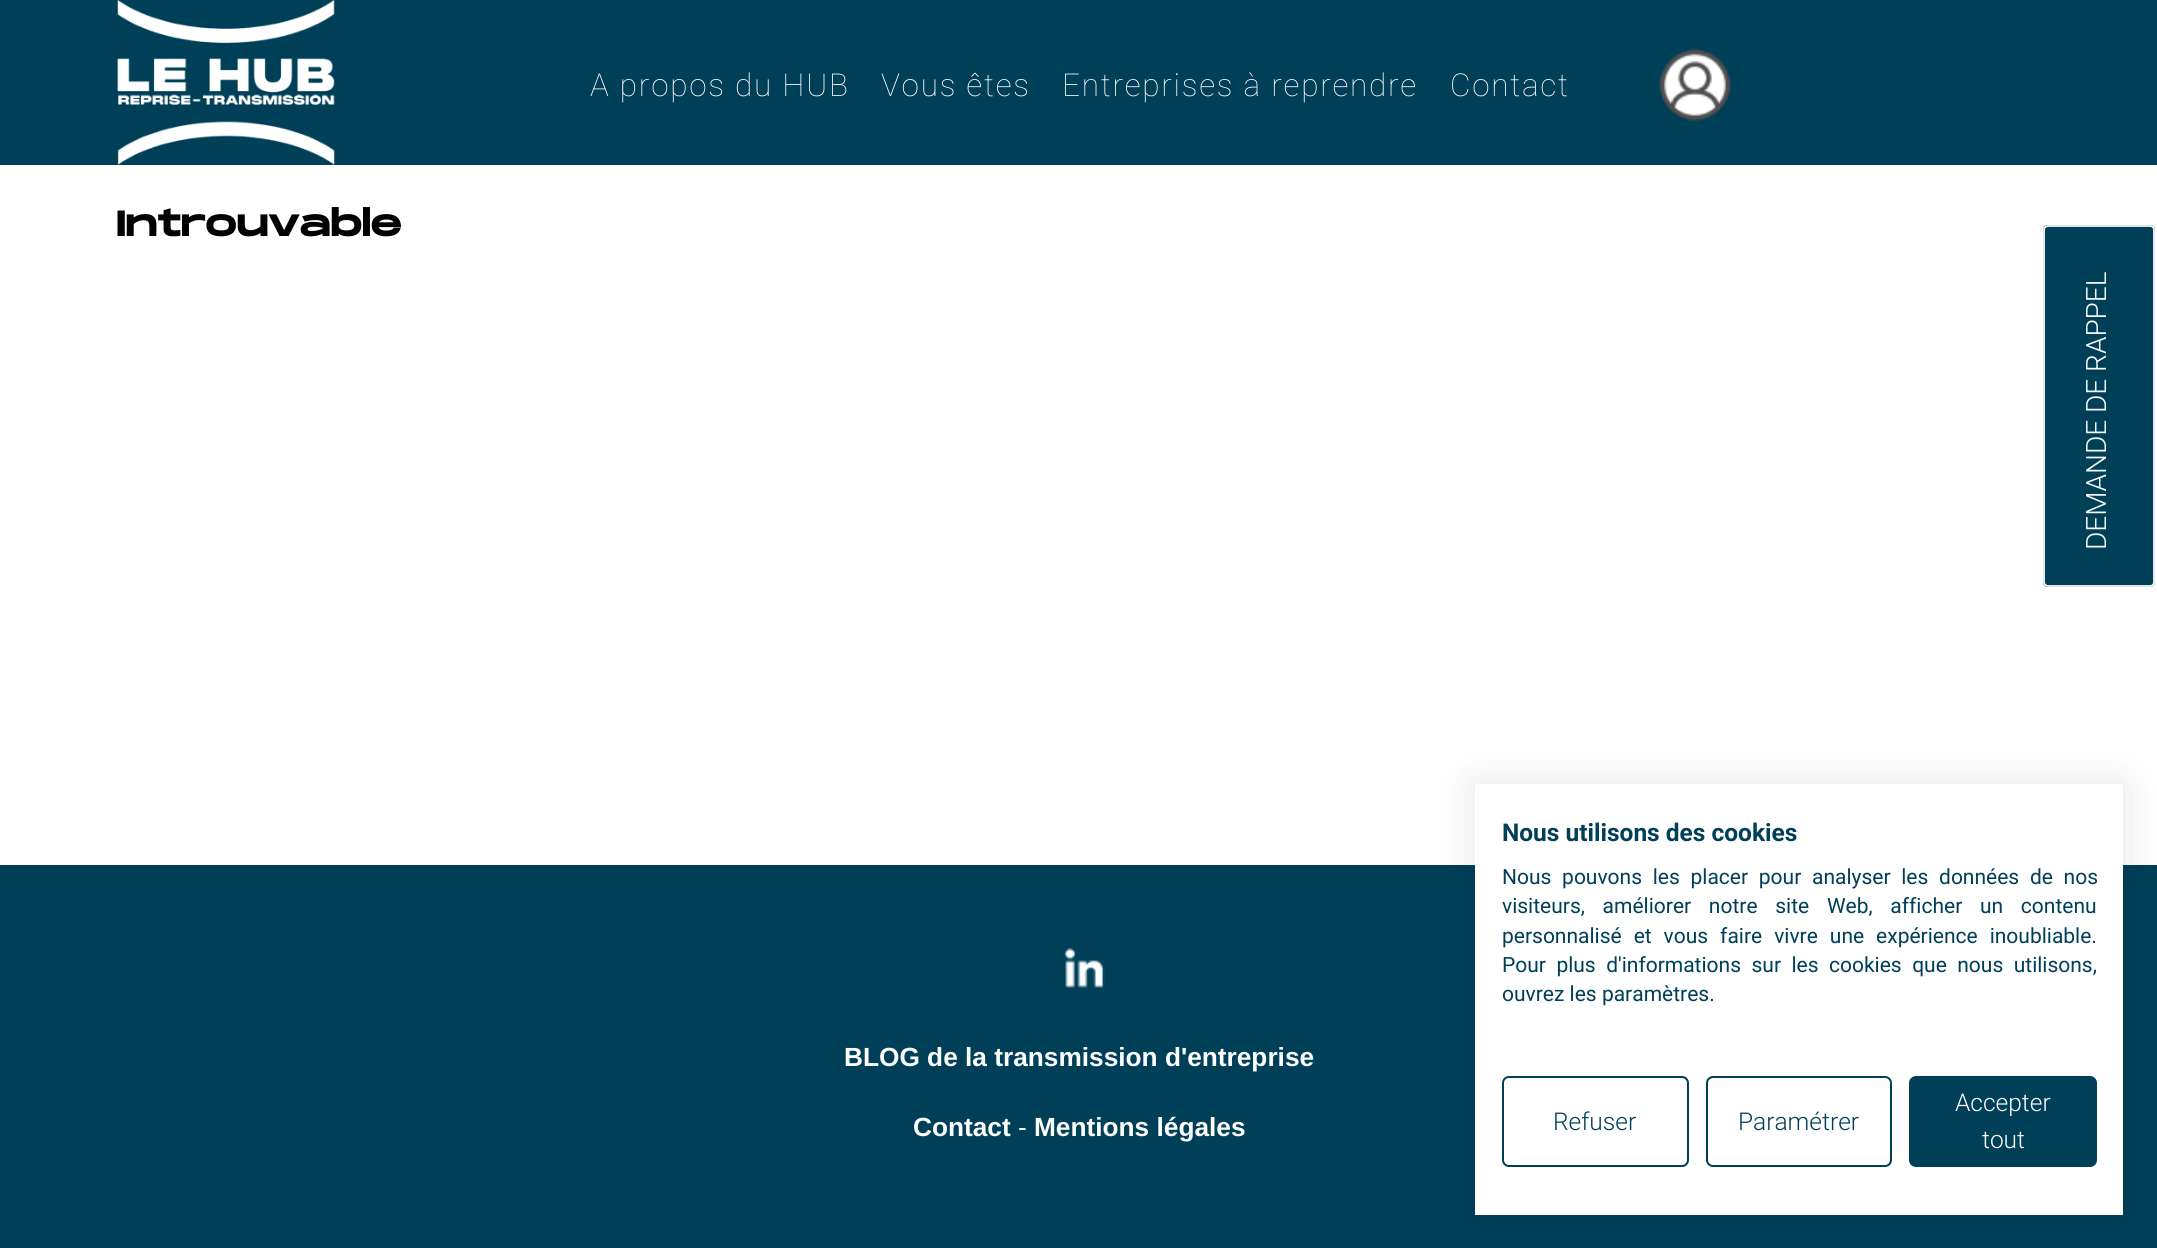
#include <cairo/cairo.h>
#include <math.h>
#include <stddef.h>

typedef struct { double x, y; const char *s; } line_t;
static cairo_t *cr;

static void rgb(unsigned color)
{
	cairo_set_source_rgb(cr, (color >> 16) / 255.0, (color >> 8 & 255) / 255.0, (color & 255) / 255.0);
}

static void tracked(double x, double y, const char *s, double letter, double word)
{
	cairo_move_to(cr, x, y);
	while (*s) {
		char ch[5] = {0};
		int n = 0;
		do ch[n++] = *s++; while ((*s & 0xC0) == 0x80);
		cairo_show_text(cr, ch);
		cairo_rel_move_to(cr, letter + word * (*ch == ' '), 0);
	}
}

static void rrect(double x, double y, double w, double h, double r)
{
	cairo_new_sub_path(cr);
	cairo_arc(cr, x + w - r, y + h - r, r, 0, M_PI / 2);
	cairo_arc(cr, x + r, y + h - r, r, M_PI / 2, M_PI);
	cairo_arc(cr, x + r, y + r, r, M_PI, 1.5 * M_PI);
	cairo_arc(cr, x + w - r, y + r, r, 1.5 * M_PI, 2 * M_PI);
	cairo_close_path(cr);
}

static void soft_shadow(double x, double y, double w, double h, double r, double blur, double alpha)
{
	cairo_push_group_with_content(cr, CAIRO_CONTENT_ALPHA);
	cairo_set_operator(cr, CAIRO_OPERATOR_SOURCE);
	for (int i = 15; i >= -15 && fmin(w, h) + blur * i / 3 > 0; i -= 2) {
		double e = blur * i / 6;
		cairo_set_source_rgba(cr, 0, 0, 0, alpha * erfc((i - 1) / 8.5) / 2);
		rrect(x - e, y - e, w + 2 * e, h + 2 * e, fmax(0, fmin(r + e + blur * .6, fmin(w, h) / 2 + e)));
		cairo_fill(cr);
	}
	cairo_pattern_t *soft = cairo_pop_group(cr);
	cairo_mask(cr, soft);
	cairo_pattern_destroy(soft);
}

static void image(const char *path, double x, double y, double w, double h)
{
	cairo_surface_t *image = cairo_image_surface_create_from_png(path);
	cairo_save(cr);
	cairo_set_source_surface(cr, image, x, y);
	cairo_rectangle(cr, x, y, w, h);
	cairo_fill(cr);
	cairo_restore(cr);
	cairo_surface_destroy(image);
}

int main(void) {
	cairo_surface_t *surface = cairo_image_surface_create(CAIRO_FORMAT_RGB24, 2157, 1248);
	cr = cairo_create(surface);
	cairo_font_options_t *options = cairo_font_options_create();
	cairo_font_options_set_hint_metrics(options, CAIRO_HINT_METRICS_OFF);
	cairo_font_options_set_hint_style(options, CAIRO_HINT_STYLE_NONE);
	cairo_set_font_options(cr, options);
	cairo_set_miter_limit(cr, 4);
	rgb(0xffffff);
	cairo_paint(cr);
	rgb(0x003f58);
	cairo_rectangle(cr, 0, 0, 2157, 165);
	cairo_fill(cr);
	image("img/1.png", 117, 0, 218, 165);
	image("img/2.png", 1658, 48, 74, 74);
	cairo_rectangle(cr, 0, 865, 2157, 383);
	cairo_fill(cr);
	image("img/3.png", 1064, 948, 41, 40);
	cairo_new_path(cr);
	cairo_move_to(cr, 2043, 582);
	cairo_line_to(cr, 2043, 230);
	cairo_curve_to(cr, 2043, 227, 2045, 225, 2048, 225);
	cairo_line_to(cr, 2150, 225);
	cairo_curve_to(cr, 2153, 225, 2155, 227, 2155, 230);
	cairo_line_to(cr, 2155, 582);
	cairo_curve_to(cr, 2155, 585, 2153, 587, 2150, 587);
	cairo_line_to(cr, 2048, 587);
	cairo_curve_to(cr, 2045, 587, 2043, 585, 2043, 582);
	cairo_close_path(cr);
	cairo_fill(cr);
	cairo_new_path(cr);
	cairo_move_to(cr, 2044, 582);
	cairo_line_to(cr, 2044, 230);
	cairo_curve_to(cr, 2044, 227.5, 2046, 226, 2048.5, 226);
	cairo_line_to(cr, 2150, 226);
	cairo_curve_to(cr, 2152.5, 226, 2154, 227.5, 2154, 230);
	cairo_line_to(cr, 2154, 582);
	cairo_curve_to(cr, 2154, 584.5, 2152.5, 586, 2150, 586);
	cairo_line_to(cr, 2048.5, 586);
	cairo_curve_to(cr, 2046, 586, 2044, 584.5, 2044, 582);
	cairo_close_path(cr);
	rgb(0xffffff);
	cairo_set_line_width(cr, 1.8);
	cairo_stroke(cr);
	rgb(0x000000);
	soft_shadow(1475, 784, 648, 431, 0, 21, 0.1);
	rgb(0xffffff);
	cairo_rectangle(cr, 1475, 784, 648, 431);
	cairo_fill(cr);
	rrect(1503, 1077, 185, 89, 6);
	rgb(0x003f58);
	cairo_set_line_width(cr, 2);
	cairo_stroke(cr);
	rrect(1707, 1077, 184, 89, 6);
	cairo_stroke(cr);
	rrect(1910, 1077, 186, 89, 6);
	cairo_fill_preserve(cr);
	cairo_stroke(cr);
	cairo_select_font_face(cr, "Roboto Thin", CAIRO_FONT_SLANT_NORMAL, CAIRO_FONT_WEIGHT_NORMAL);
	cairo_set_font_size(cr, 31.5);
	rgb(0xffffff);
	{
		static const line_t items[] = {
			{590, 96, "A propos du HUB"},
			{881, 96, "Vous êtes"},
			{1062, 96, "Entreprises à reprendre"},
			{1450, 96, "Contact"},
		};
		for (size_t i = 0; i < sizeof items / sizeof *items; i++) {
			tracked(items[i].x, items[i].y, items[i].s, 1.75, 0);
		}
	}
	cairo_select_font_face(cr, "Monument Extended", CAIRO_FONT_SLANT_NORMAL, CAIRO_FONT_WEIGHT_BOLD);
	cairo_set_font_size(cr, 35);
	rgb(0x010101);
	cairo_move_to(cr, 116, 236);
	cairo_show_text(cr, "Introuvable");
	cairo_select_font_face(cr, "Liberation Sans", CAIRO_FONT_SLANT_NORMAL, CAIRO_FONT_WEIGHT_BOLD);
	cairo_set_font_size(cr, 26.25);
	rgb(0xffffff);
	cairo_move_to(cr, 844, 1066);
	cairo_show_text(cr, "BLOG de la transmission d'entreprise");
	cairo_move_to(cr, 913, 1136);
	cairo_show_text(cr, "Contact");
	cairo_select_font_face(cr, "Liberation Sans", CAIRO_FONT_SLANT_NORMAL, CAIRO_FONT_WEIGHT_NORMAL);
	cairo_move_to(cr, 1018, 1136);
	cairo_show_text(cr, "-");
	cairo_select_font_face(cr, "Liberation Sans", CAIRO_FONT_SLANT_NORMAL, CAIRO_FONT_WEIGHT_BOLD);
	cairo_move_to(cr, 1034, 1136);
	cairo_show_text(cr, "Mentions légales");
	cairo_select_font_face(cr, "Roboto Light", CAIRO_FONT_SLANT_NORMAL, CAIRO_FONT_WEIGHT_NORMAL);
	cairo_set_font_size(cr, 28);
	cairo_save(cr);
	cairo_translate(cr, 2106, 550);
	cairo_rotate(cr, -90 * M_PI / 180);
	cairo_move_to(cr, 0, 0);
	cairo_show_text(cr, "DEMANDE DE RAPPEL");
	cairo_restore(cr);
	cairo_select_font_face(cr, "Roboto", CAIRO_FONT_SLANT_NORMAL, CAIRO_FONT_WEIGHT_BOLD);
	cairo_set_font_size(cr, 24.5);
	rgb(0x003f58);
	cairo_move_to(cr, 1502, 841);
	cairo_show_text(cr, "Nous utilisons des cookies");
	cairo_select_font_face(cr, "Roboto", CAIRO_FONT_SLANT_NORMAL, CAIRO_FONT_WEIGHT_NORMAL);
	cairo_set_font_size(cr, 21);
	tracked(1502, 884, "Nous pouvons les placer pour analyser les données de nos", 0, 5.5);
	tracked(1502, 913, "visiteurs, améliorer notre site Web, afficher un contenu", 0, 12.5);
	tracked(1502, 943, "personnalisé et vous faire vivre une expérience inoubliable.", 0, 6.75);
	tracked(1502, 972, "Pour plus d'informations sur les cookies que nous utilisons,", 0, 5.25);
	cairo_move_to(cr, 1502, 1001);
	cairo_show_text(cr, "ouvrez les paramètres.");
	cairo_select_font_face(cr, "Roboto Light", CAIRO_FONT_SLANT_NORMAL, CAIRO_FONT_WEIGHT_NORMAL);
	cairo_set_font_size(cr, 24.5);
	cairo_move_to(cr, 1553, 1130);
	cairo_show_text(cr, "Refuser");
	cairo_move_to(cr, 1738, 1130);
	cairo_show_text(cr, "Paramétrer");
	rgb(0xffffff);
	cairo_move_to(cr, 1955, 1111);
	cairo_show_text(cr, "Accepter");
	cairo_move_to(cr, 1982, 1148);
	cairo_show_text(cr, "tout");
	cairo_surface_write_to_png(surface, "page.png");
	cairo_font_options_destroy(options);
	cairo_destroy(cr);
	cairo_surface_destroy(surface);
	return 0;
}
